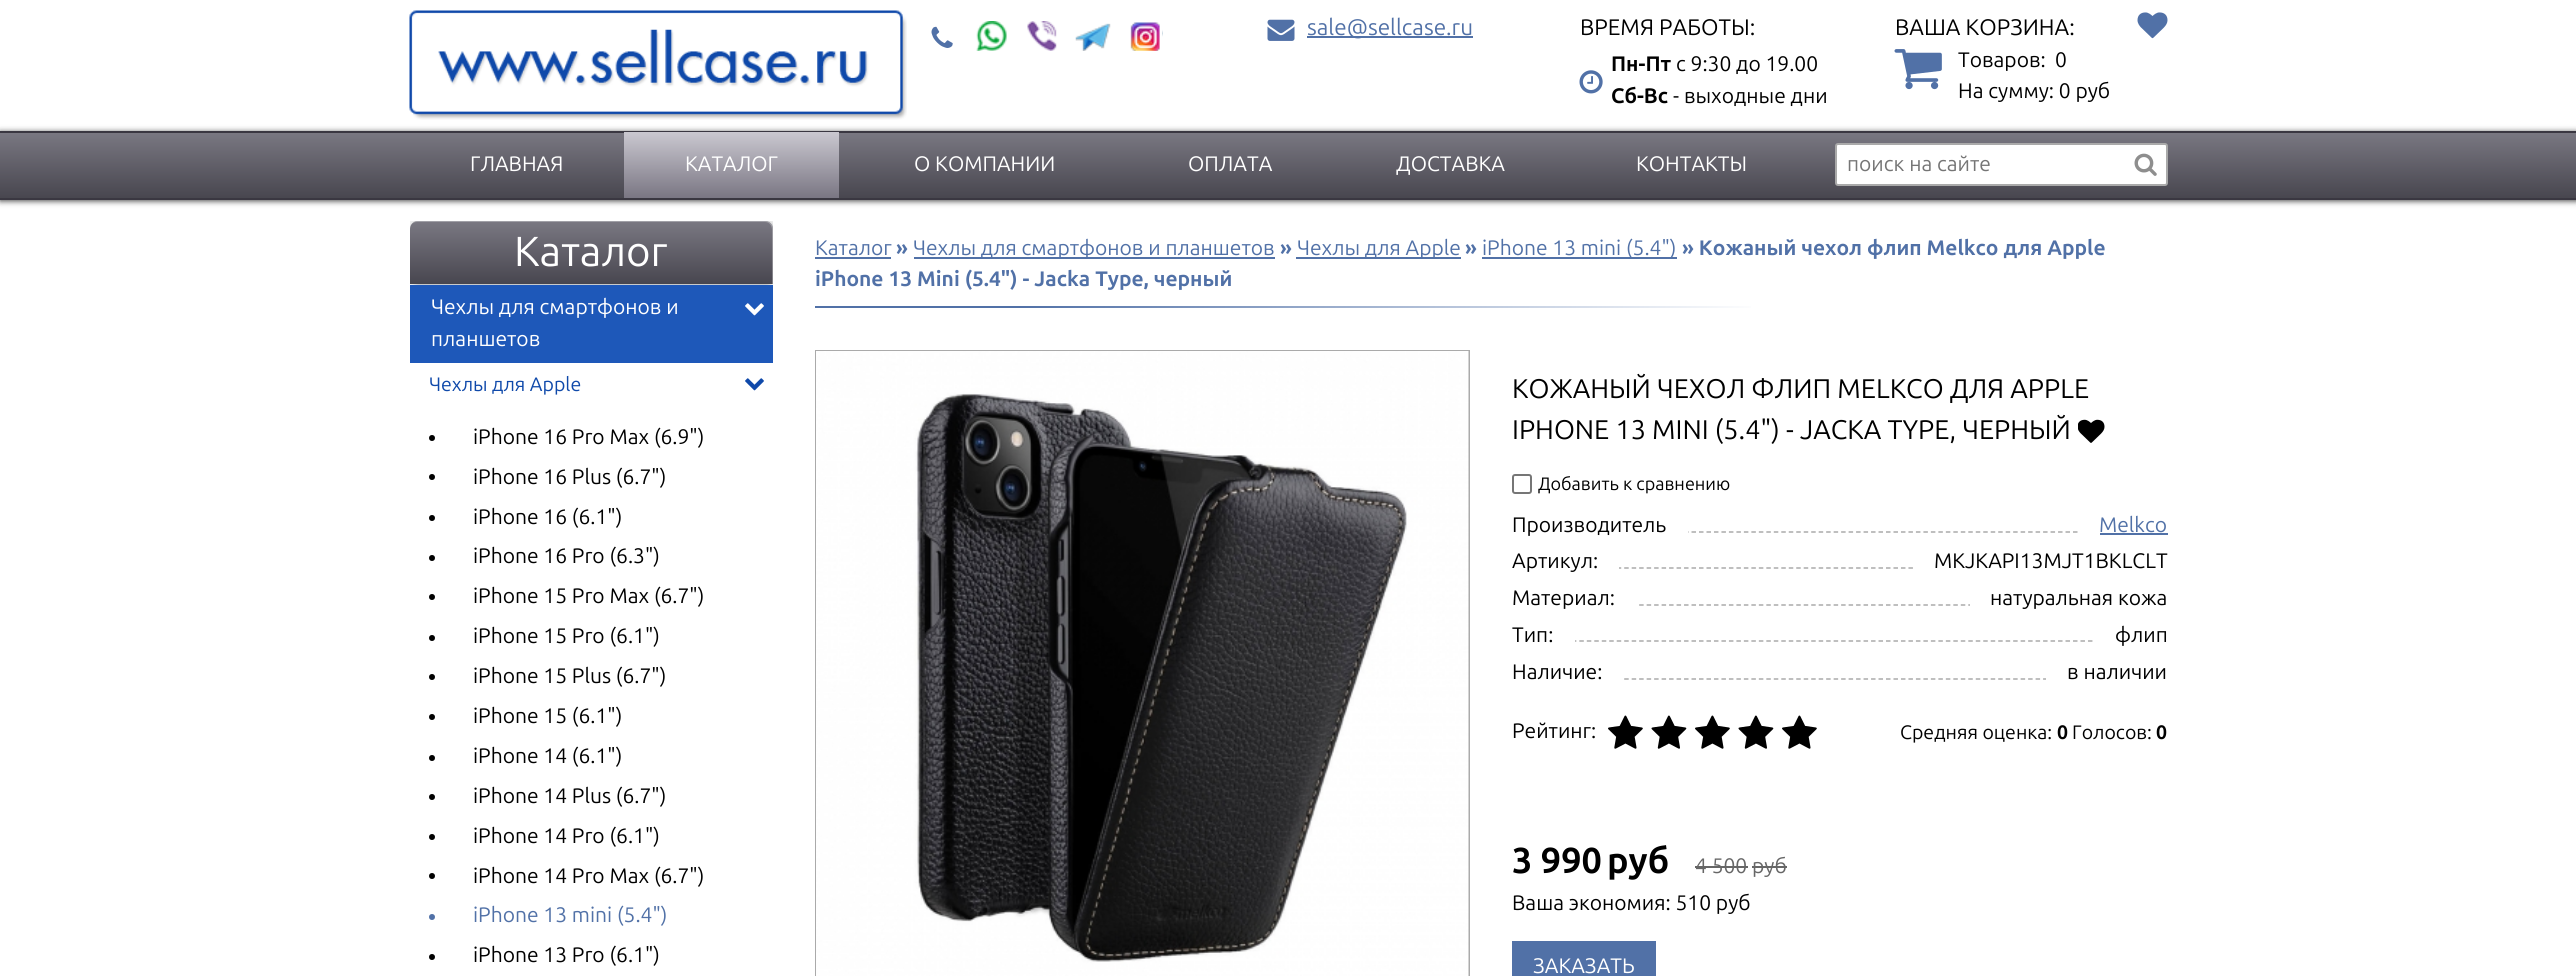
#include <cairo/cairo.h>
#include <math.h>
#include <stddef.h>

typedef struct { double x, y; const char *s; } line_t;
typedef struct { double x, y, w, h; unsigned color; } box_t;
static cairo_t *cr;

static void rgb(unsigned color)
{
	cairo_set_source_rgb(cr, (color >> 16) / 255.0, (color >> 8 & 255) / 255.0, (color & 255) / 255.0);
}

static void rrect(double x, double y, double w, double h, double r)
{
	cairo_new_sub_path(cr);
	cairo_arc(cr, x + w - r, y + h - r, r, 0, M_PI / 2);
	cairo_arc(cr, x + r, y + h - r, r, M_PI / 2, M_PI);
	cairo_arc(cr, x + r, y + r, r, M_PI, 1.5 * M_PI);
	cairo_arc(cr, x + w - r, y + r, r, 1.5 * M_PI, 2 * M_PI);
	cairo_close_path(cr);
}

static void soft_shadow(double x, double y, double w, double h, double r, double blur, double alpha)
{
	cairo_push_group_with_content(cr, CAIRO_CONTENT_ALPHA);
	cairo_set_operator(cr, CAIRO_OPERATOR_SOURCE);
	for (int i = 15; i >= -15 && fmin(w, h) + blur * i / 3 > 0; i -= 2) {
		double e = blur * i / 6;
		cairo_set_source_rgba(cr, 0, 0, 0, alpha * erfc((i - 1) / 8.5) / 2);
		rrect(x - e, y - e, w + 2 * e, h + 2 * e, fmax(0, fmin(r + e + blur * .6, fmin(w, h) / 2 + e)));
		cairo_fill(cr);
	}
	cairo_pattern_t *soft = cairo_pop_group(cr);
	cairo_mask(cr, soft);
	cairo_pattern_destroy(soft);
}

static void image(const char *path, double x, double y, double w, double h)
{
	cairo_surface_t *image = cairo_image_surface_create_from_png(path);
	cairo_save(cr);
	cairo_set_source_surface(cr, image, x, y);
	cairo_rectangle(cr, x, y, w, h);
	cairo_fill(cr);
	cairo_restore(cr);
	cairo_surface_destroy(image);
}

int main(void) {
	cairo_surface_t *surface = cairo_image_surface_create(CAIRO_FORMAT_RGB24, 2576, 976);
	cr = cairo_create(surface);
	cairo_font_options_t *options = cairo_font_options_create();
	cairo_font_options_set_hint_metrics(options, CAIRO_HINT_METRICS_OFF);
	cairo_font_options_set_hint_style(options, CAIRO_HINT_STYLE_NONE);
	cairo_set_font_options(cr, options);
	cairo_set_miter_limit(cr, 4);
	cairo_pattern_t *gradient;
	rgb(0xffffff);
	cairo_paint(cr);
	image("img/1.png", 409, 10, 498, 110);
	image("img/2.png", 931, 26, 22, 22);
	image("img/3.png", 976, 21, 31, 30);
	image("img/4.png", 1027, 21, 30, 30);
	image("img/5.png", 1075, 23, 36, 28);
	image("img/6.png", 1130, 22, 33, 29);
	image("img/7.png", 1267, 19, 28, 22);
	rgb(0x5171a7);
	cairo_rectangle(cr, 1307, 36, 166, 2);
	cairo_fill(cr);
	image("img/8.png", 1579, 70, 24, 24);
	image("img/9.png", 1894, 49, 48, 41);
	image("img/10.png", 2137, 12, 31, 27);
	rgb(0x454545);
	soft_shadow(0, 132, 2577, 69, 0, 3, 1);
	gradient = cairo_pattern_create_linear(1289, 198, 1289, 132);
	cairo_pattern_add_color_stop_rgba(gradient, 0, 0.282, 0.275, 0.31, 1);
	cairo_pattern_add_color_stop_rgba(gradient, 1, 0.478, 0.471, 0.51, 1);
	cairo_set_source(cr, gradient);
	cairo_pattern_destroy(gradient);
	cairo_rectangle(cr, 0, 133, 2576, 65);
	cairo_fill(cr);
	rgb(0x3a3741);
	cairo_rectangle(cr, 0, 131, 2576, 2);
	cairo_fill(cr);
	cairo_rectangle(cr, 0, 198, 2576, 2);
	cairo_fill(cr);
	gradient = cairo_pattern_create_linear(731, 132, 731, 198);
	cairo_pattern_add_color_stop_rgba(gradient, 0, 0.792, 0.784, 0.816, 1);
	cairo_pattern_add_color_stop_rgba(gradient, 1, 0.478, 0.463, 0.514, 1);
	cairo_set_source(cr, gradient);
	cairo_pattern_destroy(gradient);
	cairo_rectangle(cr, 624, 132, 215, 66);
	cairo_fill(cr);
	rgb(0xffffff);
	rrect(1836, 144, 331, 41, 2);
	cairo_fill_preserve(cr);
	rgb(0xaaaaaa);
	cairo_stroke(cr);
	image("img/11.png", 2134, 153, 23, 23);
	rgb(0xefefef);
	cairo_rectangle(cr, 410, 221, 363, 64);
	cairo_fill(cr);
	cairo_save(cr);
	cairo_rectangle(cr, 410, 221, 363, 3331);
	cairo_clip(cr);
	rgb(0xafb0b3);
	soft_shadow(411, 222, 363, 63, 8, 2, 1);
	cairo_restore(cr);
	gradient = cairo_pattern_create_linear(591, 221, 591, 284);
	cairo_pattern_add_color_stop_rgba(gradient, 0, 0.478, 0.471, 0.51, 1);
	cairo_pattern_add_color_stop_rgba(gradient, 1, 0.282, 0.275, 0.31, 1);
	cairo_set_source(cr, gradient);
	cairo_pattern_destroy(gradient);
	cairo_new_path(cr);
	cairo_move_to(cr, 418, 221);
	cairo_line_to(cr, 765, 221);
	cairo_curve_to(cr, 769.5, 221, 773, 224.5, 773, 229);
	cairo_line_to(cr, 773, 284);
	cairo_line_to(cr, 410, 284);
	cairo_line_to(cr, 410, 229);
	cairo_curve_to(cr, 410, 224.5, 413.5, 221, 418, 221);
	cairo_close_path(cr);
	cairo_fill(cr);
	cairo_set_source_rgba(cr, 1, 1, 1, 0.3);
	cairo_new_path(cr);
	cairo_move_to(cr, 417, 222);
	cairo_line_to(cr, 765, 222);
	cairo_curve_to(cr, 769, 222, 772, 225, 772, 230);
	cairo_line_to(cr, 772, 284);
	cairo_line_to(cr, 773, 284);
	cairo_line_to(cr, 773, 229);
	cairo_curve_to(cr, 773, 225, 769, 221, 765, 221);
	cairo_line_to(cr, 418, 221);
	cairo_curve_to(cr, 414, 221, 410, 225, 410, 229);
	cairo_line_to(cr, 410, 230);
	cairo_curve_to(cr, 410, 225, 413, 222, 417, 222);
	cairo_close_path(cr);
	cairo_fill(cr);
	rgb(0x1e58b9);
	cairo_rectangle(cr, 410, 285, 363, 78);
	cairo_fill(cr);
	image("img/12.png", 745, 303, 19, 13);
	image("img/13.png", 745, 378, 19, 13);
	rgb(0x000000);
	cairo_arc(cr, 432, 438, 3, 0, 2 * M_PI);
	cairo_fill(cr);
	cairo_arc(cr, 432, 477, 3, 0, 2 * M_PI);
	cairo_fill(cr);
	cairo_arc(cr, 432, 518, 3, 0, 2 * M_PI);
	cairo_fill(cr);
	cairo_arc(cr, 432, 558, 3, 0, 2 * M_PI);
	cairo_fill(cr);
	cairo_arc(cr, 432, 597, 3, 0, 2 * M_PI);
	cairo_fill(cr);
	cairo_arc(cr, 432, 638, 3, 0, 2 * M_PI);
	cairo_fill(cr);
	cairo_arc(cr, 432, 677, 3, 0, 2 * M_PI);
	cairo_fill(cr);
	cairo_arc(cr, 432, 717, 3, 0, 2 * M_PI);
	cairo_fill(cr);
	cairo_arc(cr, 432, 758, 3, 0, 2 * M_PI);
	cairo_fill(cr);
	cairo_arc(cr, 432, 797, 3, 0, 2 * M_PI);
	cairo_fill(cr);
	cairo_arc(cr, 432, 837, 3, 0, 2 * M_PI);
	cairo_fill(cr);
	cairo_arc(cr, 432, 876, 3, 0, 2 * M_PI);
	cairo_fill(cr);
	rgb(0x5171a7);
	cairo_arc(cr, 432, 917, 3, 0, 2 * M_PI);
	cairo_fill(cr);
	rgb(0x000000);
	cairo_arc(cr, 432, 957, 3, 0, 2 * M_PI);
	cairo_fill(cr);
	{
		static const box_t items[] = {
			{815, 257, 76, 2, 0x5171a7},
			{914, 257, 361, 2, 0x5171a7},
			{1296, 257, 165, 2, 0x5171a7},
			{1482, 257, 195, 2, 0x5171a7},
		};
		for (size_t i = 0; i < sizeof items / sizeof *items; i++) {
			rgb(items[i].color);
			cairo_rectangle(cr, items[i].x, items[i].y, items[i].w, items[i].h);
			cairo_fill(cr);
		}
	}
	gradient = cairo_pattern_create_linear(815, 307, 2168, 307);
	cairo_pattern_add_color_stop_rgba(gradient, 0, 0.318, 0.443, 0.655, 1);
	cairo_pattern_add_color_stop_rgba(gradient, 0.15, 0.318, 0.443, 0.655, 1);
	cairo_pattern_add_color_stop_rgba(gradient, 0.7, 1, 1, 1, 1);
	cairo_set_source(cr, gradient);
	cairo_pattern_destroy(gradient);
	cairo_rectangle(cr, 815, 306, 936, 2);
	cairo_fill(cr);
	cairo_rectangle(cr, 816, 351, 653, 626);
	rgb(0xaaaaaa);
	cairo_stroke(cr);
	image("img/14.png", 816, 351, 653, 625);
	image("img/15.png", 2078, 419, 27, 24);
	rrect(1513, 475, 18, 18, 2);
	rgb(0x767676);
	cairo_stroke(cr);
	cairo_new_path(cr);
	cairo_move_to(cr, 1512, 532);
	cairo_line_to(cr, 2167.5, 532);
	rgb(0xaaaaaa);
	cairo_set_line_width(cr, 1.5);
	cairo_set_dash(cr, (double[]){4.5, 2.98}, 2, 0);
	cairo_stroke(cr);
	{
		static const box_t items[] = {
			{1512, 531, 176, 2, 0xffffff},
			{2080, 531, 88, 2, 0xffffff},
			{2100, 533, 68, 2, 0x5171a7},
		};
		for (size_t i = 0; i < sizeof items / sizeof *items; i++) {
			rgb(items[i].color);
			cairo_rectangle(cr, items[i].x, items[i].y, items[i].w, items[i].h);
			cairo_fill(cr);
		}
	}
	cairo_new_path(cr);
	cairo_move_to(cr, 1512, 568);
	cairo_line_to(cr, 2167.5, 568);
	rgb(0xaaaaaa);
	cairo_stroke(cr);
	rgb(0xffffff);
	cairo_rectangle(cr, 1512, 567, 107, 2);
	cairo_fill(cr);
	cairo_rectangle(cr, 1915, 567, 253, 2);
	cairo_fill(cr);
	cairo_new_path(cr);
	cairo_move_to(cr, 1512, 605);
	cairo_line_to(cr, 2167.5, 605);
	rgb(0xaaaaaa);
	cairo_stroke(cr);
	rgb(0xffffff);
	cairo_rectangle(cr, 1512, 604, 125, 2);
	cairo_fill(cr);
	cairo_rectangle(cr, 1970, 604, 198, 2);
	cairo_fill(cr);
	cairo_new_path(cr);
	cairo_move_to(cr, 1512, 641);
	cairo_line_to(cr, 2167.5, 641);
	rgb(0xaaaaaa);
	cairo_stroke(cr);
	rgb(0xffffff);
	cairo_rectangle(cr, 1512, 640, 63, 2);
	cairo_fill(cr);
	cairo_rectangle(cr, 2095, 640, 73, 2);
	cairo_fill(cr);
	cairo_new_path(cr);
	cairo_move_to(cr, 1512, 679);
	cairo_line_to(cr, 2167.5, 679);
	rgb(0xaaaaaa);
	cairo_stroke(cr);
	rgb(0xffffff);
	cairo_rectangle(cr, 1512, 678, 110, 2);
	cairo_fill(cr);
	cairo_rectangle(cr, 2046, 678, 122, 2);
	cairo_fill(cr);
	image("img/16.png", 1608, 715, 35, 34);
	image("img/17.png", 1651, 715, 36, 34);
	image("img/16.png", 1695, 715, 35, 34);
	image("img/17.png", 1738, 715, 36, 34);
	image("img/16.png", 1782, 715, 35, 34);
	{
		static const box_t items[] = {
			{1695, 866, 53, 2, 0x666666},
			{1752, 866, 35, 2, 0x666666},
			{1512, 941, 144, 35, 0x5171a7},
		};
		for (size_t i = 0; i < sizeof items / sizeof *items; i++) {
			rgb(items[i].color);
			cairo_rectangle(cr, items[i].x, items[i].y, items[i].w, items[i].h);
			cairo_fill(cr);
		}
	}
	cairo_select_font_face(cr, "Ubuntu", CAIRO_FONT_SLANT_NORMAL, CAIRO_FONT_WEIGHT_NORMAL);
	cairo_set_font_size(cr, 22.5);
	cairo_move_to(cr, 1307, 35);
	cairo_show_text(cr, "sale@sellcase.ru");
	rgb(0x000000);
	cairo_move_to(cr, 1580, 35);
	cairo_show_text(cr, "ВРЕМЯ РАБОТЫ:");
	cairo_select_font_face(cr, "Ubuntu", CAIRO_FONT_SLANT_NORMAL, CAIRO_FONT_WEIGHT_BOLD);
	cairo_set_font_size(cr, 21);
	cairo_move_to(cr, 1611, 71);
	cairo_show_text(cr, "Пн-Пт");
	cairo_select_font_face(cr, "Ubuntu", CAIRO_FONT_SLANT_NORMAL, CAIRO_FONT_WEIGHT_NORMAL);
	cairo_move_to(cr, 1676, 71);
	cairo_show_text(cr, "с 9:30 до 19.00");
	cairo_select_font_face(cr, "Ubuntu", CAIRO_FONT_SLANT_NORMAL, CAIRO_FONT_WEIGHT_BOLD);
	cairo_move_to(cr, 1611, 103);
	cairo_show_text(cr, "Сб-Вс");
	cairo_select_font_face(cr, "Ubuntu", CAIRO_FONT_SLANT_NORMAL, CAIRO_FONT_WEIGHT_NORMAL);
	cairo_move_to(cr, 1673, 103);
	cairo_show_text(cr, "- выходные дни");
	cairo_set_font_size(cr, 22.5);
	cairo_move_to(cr, 1895, 35);
	cairo_show_text(cr, "ВАША КОРЗИНА:");
	cairo_set_font_size(cr, 21);
	{
		static const line_t items[] = {
			{1958, 67, "Товаров:"},
			{2055, 67, "0"},
			{1958, 98, "На сумму: 0 руб"},
		};
		for (size_t i = 0; i < sizeof items / sizeof *items; i++) {
			cairo_move_to(cr, items[i].x, items[i].y);
			cairo_show_text(cr, items[i].s);
		}
	}
	rgb(0xffffff);
	{
		static const line_t items[] = {
			{470, 171, "ГЛАВНАЯ"},
			{685, 171, "КАТАЛОГ"},
			{914, 171, "О КОМПАНИИ"},
			{1188, 171, "ОПЛАТА"},
			{1396, 171, "ДОСТАВКА"},
			{1636, 171, "КОНТАКТЫ"},
		};
		for (size_t i = 0; i < sizeof items / sizeof *items; i++) {
			cairo_move_to(cr, items[i].x, items[i].y);
			cairo_show_text(cr, items[i].s);
		}
	}
	rgb(0x757575);
	cairo_move_to(cr, 1847, 171);
	cairo_show_text(cr, "поиск на сайте");
	cairo_set_font_size(cr, 42);
	rgb(0xffffff);
	cairo_move_to(cr, 514, 266);
	cairo_show_text(cr, "Каталог");
	cairo_set_font_size(cr, 21);
	cairo_move_to(cr, 431, 314);
	cairo_show_text(cr, "Чехлы для смартфонов и");
	cairo_move_to(cr, 431, 346);
	cairo_show_text(cr, "планшетов");
	cairo_set_font_size(cr, 19.5);
	rgb(0x0f49aa);
	cairo_move_to(cr, 429, 391);
	cairo_show_text(cr, "Чехлы для Apple");
	cairo_set_font_size(cr, 21);
	rgb(0x000000);
	{
		static const line_t items[] = {
			{473, 444, "iPhone 16 Pro Max (6.9\")"},
			{473, 484, "iPhone 16 Plus (6.7\")"},
			{473, 524, "iPhone 16 (6.1\")"},
			{473, 563, "iPhone 16 Pro (6.3\")"},
			{473, 603, "iPhone 15 Pro Max (6.7\")"},
			{473, 643, "iPhone 15 Pro (6.1\")"},
			{473, 683, "iPhone 15 Plus (6.7\")"},
			{473, 723, "iPhone 15 (6.1\")"},
			{473, 763, "iPhone 14 (6.1\")"},
			{473, 803, "iPhone 14 Plus (6.7\")"},
			{473, 843, "iPhone 14 Pro (6.1\")"},
			{473, 883, "iPhone 14 Pro Max (6.7\")"},
		};
		for (size_t i = 0; i < sizeof items / sizeof *items; i++) {
			cairo_move_to(cr, items[i].x, items[i].y);
			cairo_show_text(cr, items[i].s);
		}
	}
	rgb(0x5171a7);
	cairo_move_to(cr, 473, 922);
	cairo_show_text(cr, "iPhone 13 mini (5.4\")");
	rgb(0x000000);
	cairo_move_to(cr, 473, 962);
	cairo_show_text(cr, "iPhone 13 Pro (6.1\")");
	rgb(0x5171a7);
	cairo_move_to(cr, 815, 255);
	cairo_show_text(cr, "Каталог");
	cairo_select_font_face(cr, "Ubuntu", CAIRO_FONT_SLANT_NORMAL, CAIRO_FONT_WEIGHT_BOLD);
	cairo_move_to(cr, 896, 255);
	cairo_show_text(cr, "»");
	cairo_select_font_face(cr, "Ubuntu", CAIRO_FONT_SLANT_NORMAL, CAIRO_FONT_WEIGHT_NORMAL);
	cairo_move_to(cr, 913, 255);
	cairo_show_text(cr, "Чехлы для смартфонов и планшетов");
	cairo_select_font_face(cr, "Ubuntu", CAIRO_FONT_SLANT_NORMAL, CAIRO_FONT_WEIGHT_BOLD);
	cairo_move_to(cr, 1280, 255);
	cairo_show_text(cr, "»");
	cairo_select_font_face(cr, "Ubuntu", CAIRO_FONT_SLANT_NORMAL, CAIRO_FONT_WEIGHT_NORMAL);
	cairo_move_to(cr, 1297, 255);
	cairo_show_text(cr, "Чехлы для Apple");
	cairo_select_font_face(cr, "Ubuntu", CAIRO_FONT_SLANT_NORMAL, CAIRO_FONT_WEIGHT_BOLD);
	cairo_move_to(cr, 1465, 255);
	cairo_show_text(cr, "»");
	cairo_select_font_face(cr, "Ubuntu", CAIRO_FONT_SLANT_NORMAL, CAIRO_FONT_WEIGHT_NORMAL);
	cairo_move_to(cr, 1482, 255);
	cairo_show_text(cr, "iPhone 13 mini (5.4\")");
	cairo_select_font_face(cr, "Ubuntu", CAIRO_FONT_SLANT_NORMAL, CAIRO_FONT_WEIGHT_BOLD);
	cairo_move_to(cr, 1682, 255);
	cairo_show_text(cr, "» Кожаный чехол флип Melkco для Apple");
	cairo_move_to(cr, 815, 286);
	cairo_show_text(cr, "iPhone 13 Mini (5.4\") - Jacka Type, черный");
	cairo_select_font_face(cr, "Ubuntu", CAIRO_FONT_SLANT_NORMAL, CAIRO_FONT_WEIGHT_NORMAL);
	cairo_set_font_size(cr, 27);
	rgb(0x000000);
	cairo_move_to(cr, 1512, 398);
	cairo_show_text(cr, "КОЖАНЫЙ ЧЕХОЛ ФЛИП MELKCO ДЛЯ APPLE");
	cairo_move_to(cr, 1512, 439);
	cairo_show_text(cr, "IPHONE 13 MINI (5.4\") - JACKA TYPE, ЧЕРНЫЙ");
	cairo_set_font_size(cr, 18);
	cairo_move_to(cr, 1538, 490);
	cairo_show_text(cr, "Добавить к сравнению");
	cairo_set_font_size(cr, 21);
	cairo_move_to(cr, 1512, 532);
	cairo_show_text(cr, "Производитель");
	rgb(0x5171a7);
	cairo_move_to(cr, 2099, 532);
	cairo_show_text(cr, "Melkco");
	rgb(0x000000);
	{
		static const line_t items[] = {
			{1512, 568, "Артикул:"},
			{1934, 568, "MKJKAPI13MJT1BKLCLT"},
			{1512, 605, "Материал:"},
			{1990, 605, "натуральная кожа"},
			{1512, 642, "Тип:"},
			{2115, 642, "флип"},
			{1512, 679, "Наличие:"},
			{2067, 679, "в наличии"},
			{1512, 738, "Рейтинг:"},
		};
		for (size_t i = 0; i < sizeof items / sizeof *items; i++) {
			cairo_move_to(cr, items[i].x, items[i].y);
			cairo_show_text(cr, items[i].s);
		}
	}
	cairo_set_font_size(cr, 19.5);
	cairo_move_to(cr, 1900, 739);
	cairo_show_text(cr, "Средняя оценка:");
	cairo_select_font_face(cr, "Ubuntu", CAIRO_FONT_SLANT_NORMAL, CAIRO_FONT_WEIGHT_BOLD);
	cairo_move_to(cr, 2057, 739);
	cairo_show_text(cr, "0");
	cairo_select_font_face(cr, "Ubuntu", CAIRO_FONT_SLANT_NORMAL, CAIRO_FONT_WEIGHT_NORMAL);
	cairo_move_to(cr, 2072, 739);
	cairo_show_text(cr, "Голосов:");
	cairo_select_font_face(cr, "Ubuntu", CAIRO_FONT_SLANT_NORMAL, CAIRO_FONT_WEIGHT_BOLD);
	cairo_move_to(cr, 2156, 739);
	cairo_show_text(cr, "0");
	cairo_set_font_size(cr, 36);
	cairo_move_to(cr, 1512, 873);
	cairo_show_text(cr, "3 990");
	cairo_move_to(cr, 1607, 873);
	cairo_show_text(cr, "руб");
	cairo_select_font_face(cr, "Ubuntu", CAIRO_FONT_SLANT_NORMAL, CAIRO_FONT_WEIGHT_NORMAL);
	cairo_set_font_size(cr, 21);
	rgb(0x666666);
	cairo_move_to(cr, 1695, 873);
	cairo_show_text(cr, "4 500 руб");
	rgb(0x000000);
	cairo_move_to(cr, 1512, 910);
	cairo_show_text(cr, "Ваша экономия: 510 руб");
	rgb(0xffffff);
	cairo_move_to(cr, 1533, 973);
	cairo_show_text(cr, "ЗАКАЗАТЬ");
	cairo_surface_write_to_png(surface, "page.png");
	cairo_font_options_destroy(options);
	cairo_destroy(cr);
	cairo_surface_destroy(surface);
	return 0;
}
